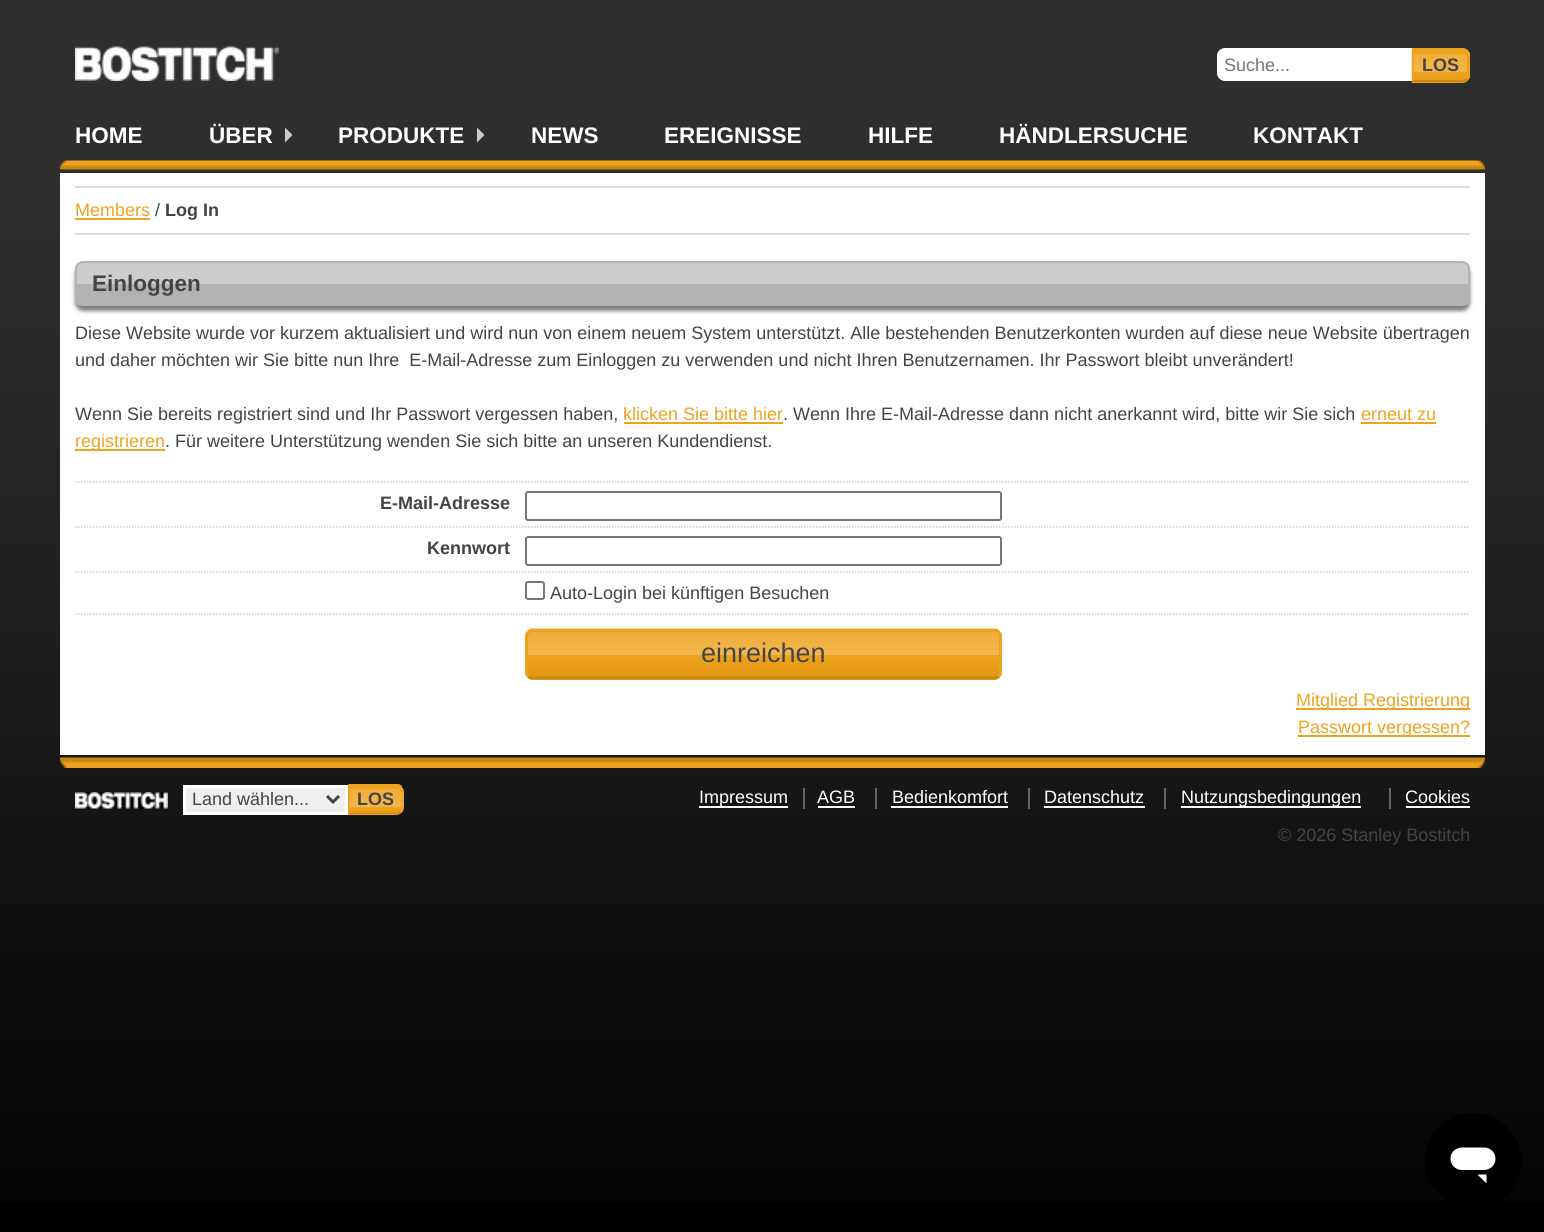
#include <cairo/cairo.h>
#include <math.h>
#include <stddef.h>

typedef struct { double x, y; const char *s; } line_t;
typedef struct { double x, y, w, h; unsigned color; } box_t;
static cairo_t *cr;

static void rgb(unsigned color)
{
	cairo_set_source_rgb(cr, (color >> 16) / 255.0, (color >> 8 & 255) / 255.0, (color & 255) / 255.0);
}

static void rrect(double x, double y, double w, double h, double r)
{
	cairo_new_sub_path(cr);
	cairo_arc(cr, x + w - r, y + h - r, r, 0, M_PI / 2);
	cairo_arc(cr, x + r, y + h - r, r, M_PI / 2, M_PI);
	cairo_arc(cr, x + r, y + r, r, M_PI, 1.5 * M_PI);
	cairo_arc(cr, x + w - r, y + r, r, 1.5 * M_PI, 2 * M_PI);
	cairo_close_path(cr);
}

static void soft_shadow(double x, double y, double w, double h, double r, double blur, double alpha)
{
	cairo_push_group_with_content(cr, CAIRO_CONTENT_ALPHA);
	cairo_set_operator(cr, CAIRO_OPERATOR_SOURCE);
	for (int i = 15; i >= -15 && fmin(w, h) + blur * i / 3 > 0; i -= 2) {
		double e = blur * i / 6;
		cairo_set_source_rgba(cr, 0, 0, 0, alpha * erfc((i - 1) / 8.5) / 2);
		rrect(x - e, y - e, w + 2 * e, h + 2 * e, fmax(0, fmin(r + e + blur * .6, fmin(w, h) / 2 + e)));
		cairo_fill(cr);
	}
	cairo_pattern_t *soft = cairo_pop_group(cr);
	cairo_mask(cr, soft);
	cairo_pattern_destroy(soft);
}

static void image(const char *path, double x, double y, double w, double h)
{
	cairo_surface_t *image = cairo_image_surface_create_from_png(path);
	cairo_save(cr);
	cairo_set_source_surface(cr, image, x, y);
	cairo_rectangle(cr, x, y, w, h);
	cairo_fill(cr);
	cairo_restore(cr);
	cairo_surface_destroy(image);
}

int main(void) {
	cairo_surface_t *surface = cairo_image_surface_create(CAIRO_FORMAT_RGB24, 1544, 1232);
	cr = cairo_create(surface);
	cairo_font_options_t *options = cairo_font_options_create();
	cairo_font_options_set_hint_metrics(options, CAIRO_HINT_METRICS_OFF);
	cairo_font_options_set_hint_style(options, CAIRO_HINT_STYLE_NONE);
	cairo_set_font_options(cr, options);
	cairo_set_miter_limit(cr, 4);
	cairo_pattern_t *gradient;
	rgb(0x000000);
	cairo_paint(cr);
	image("img/1.png", 0, 0, 1544, 1201);
	image("img/2.png", 75, 46, 204, 35);
	rgb(0xffffff);
	cairo_new_path(cr);
	cairo_move_to(cr, 1225, 50.5);
	cairo_line_to(cr, 1409.5, 50.5);
	cairo_line_to(cr, 1409.5, 78.5);
	cairo_line_to(cr, 1225, 78.5);
	cairo_curve_to(cr, 1222, 78.5, 1219.5, 76, 1219.5, 73);
	cairo_line_to(cr, 1219.5, 56);
	cairo_curve_to(cr, 1219.5, 53, 1222, 50.5, 1225, 50.5);
	cairo_close_path(cr);
	cairo_fill_preserve(cr);
	cairo_set_line_width(cr, 5);
	cairo_stroke(cr);
	rgb(0xeea320);
	cairo_new_path(cr);
	cairo_move_to(cr, 1412, 48);
	cairo_line_to(cr, 1462, 48);
	cairo_curve_to(cr, 1466.5, 48, 1470, 51.5, 1470, 56);
	cairo_line_to(cr, 1470, 75);
	cairo_curve_to(cr, 1470, 79.5, 1466.5, 83, 1462, 83);
	cairo_line_to(cr, 1412, 83);
	cairo_close_path(cr);
	cairo_fill(cr);
	image("img/3.png", 1411, 51, 59, 32);
	cairo_new_path(cr);
	cairo_move_to(cr, 1412, 48);
	cairo_line_to(cr, 1414, 51);
	cairo_line_to(cr, 1462, 51);
	cairo_curve_to(cr, 1464, 51, 1465, 52, 1466, 52);
	cairo_line_to(cr, 1468, 50);
	cairo_curve_to(cr, 1466, 49, 1464, 48, 1462, 48);
	cairo_close_path(cr);
	cairo_fill(cr);
	cairo_new_path(cr);
	cairo_move_to(cr, 1470, 75);
	cairo_line_to(cr, 1470, 56);
	cairo_curve_to(cr, 1470, 53.5, 1469, 51.5, 1468, 50);
	cairo_line_to(cr, 1465.5, 52.5);
	cairo_curve_to(cr, 1466.5, 53, 1467, 54.5, 1467, 56);
	cairo_line_to(cr, 1467, 75);
	cairo_curve_to(cr, 1467, 76, 1466.5, 77, 1465.5, 78);
	cairo_line_to(cr, 1467.5, 80);
	cairo_curve_to(cr, 1469, 79, 1470, 77, 1470, 75);
	cairo_close_path(cr);
	cairo_fill(cr);
	rgb(0xcb8710);
	cairo_new_path(cr);
	cairo_move_to(cr, 1468, 80);
	cairo_curve_to(cr, 1466, 81, 1464, 82, 1462, 82);
	cairo_line_to(cr, 1412, 82);
	cairo_line_to(cr, 1414, 80);
	cairo_line_to(cr, 1462, 80);
	cairo_curve_to(cr, 1464, 80, 1465, 79, 1466, 78);
	cairo_close_path(cr);
	cairo_fill(cr);
	rgb(0xeea320);
	cairo_new_path(cr);
	cairo_move_to(cr, 1414, 51);
	cairo_line_to(cr, 1414.5, 51);
	cairo_line_to(cr, 1412, 48.5);
	cairo_line_to(cr, 1412, 82);
	cairo_line_to(cr, 1414, 80);
	cairo_close_path(cr);
	cairo_fill(cr);
	image("img/4.png", 60, 160, 1425, 10);
	rgb(0xcccccc);
	cairo_new_path(cr);
	cairo_move_to(cr, 285, 142.5);
	cairo_line_to(cr, 285, 127.5);
	cairo_line_to(cr, 292.5, 135);
	cairo_close_path(cr);
	cairo_fill(cr);
	cairo_new_path(cr);
	cairo_move_to(cr, 477, 142.5);
	cairo_line_to(cr, 477, 127.5);
	cairo_line_to(cr, 484.5, 135);
	cairo_close_path(cr);
	cairo_fill(cr);
	{
		static const box_t items[] = {
			{60, 173, 1425, 582, 0xffffff},
			{75, 186, 1395, 2, 0xdddddd},
			{75, 233, 1395, 2, 0xdddddd},
			{75, 218, 75, 2, 0xeea320},
		};
		for (size_t i = 0; i < sizeof items / sizeof *items; i++) {
			rgb(items[i].color);
			cairo_rectangle(cr, items[i].x, items[i].y, items[i].w, items[i].h);
			cairo_fill(cr);
		}
	}
	rgb(0x000000);
	soft_shadow(75, 266, 1395, 45, 8, 2, 0.5);
	cairo_save(cr);
	rrect(75, 261, 1395, 45, 8);
	cairo_clip(cr);
	rgb(0xcccccc);
	cairo_rectangle(cr, 75, 263, 1395, 21);
	cairo_fill(cr);
	rgb(0xb3b3b3);
	cairo_rectangle(cr, 75, 284, 1395, 21);
	cairo_fill(cr);
	cairo_restore(cr);
	rrect(76, 262, 1393, 43, 7);
	rgb(0xb3b3b3);
	cairo_set_line_width(cr, 2);
	cairo_stroke(cr);
	{
		static const box_t items[] = {
			{624, 422, 159, 2, 0xeea320},
			{1361, 422, 75, 2, 0xeea320},
			{75, 449, 90, 2, 0xeea320},
		};
		for (size_t i = 0; i < sizeof items / sizeof *items; i++) {
			rgb(items[i].color);
			cairo_rectangle(cr, items[i].x, items[i].y, items[i].w, items[i].h);
			cairo_fill(cr);
		}
	}
	cairo_new_path(cr);
	cairo_move_to(cr, 75, 482);
	cairo_line_to(cr, 1470, 482);
	rgb(0xcccccc);
	cairo_set_line_width(cr, 1.5);
	cairo_set_dash(cr, (double[]){1.5, 1.5}, 2, 0);
	cairo_stroke(cr);
	rrect(526, 492, 475, 28, 2);
	rgb(0x767676);
	cairo_set_line_width(cr, 2);
	cairo_set_dash(cr, NULL, 0, 0);
	cairo_stroke(cr);
	cairo_new_path(cr);
	cairo_move_to(cr, 75, 527);
	cairo_line_to(cr, 1470, 527);
	rgb(0xcccccc);
	cairo_set_line_width(cr, 1.5);
	cairo_set_dash(cr, (double[]){1.5, 1.5}, 2, 0);
	cairo_stroke(cr);
	rrect(526, 537, 475, 28, 2);
	rgb(0x767676);
	cairo_set_line_width(cr, 2);
	cairo_set_dash(cr, NULL, 0, 0);
	cairo_stroke(cr);
	cairo_new_path(cr);
	cairo_move_to(cr, 75, 572);
	cairo_line_to(cr, 1470, 572);
	rgb(0xcccccc);
	cairo_set_line_width(cr, 1.5);
	cairo_set_dash(cr, (double[]){1.5, 1.5}, 2, 0);
	cairo_stroke(cr);
	rrect(526, 582, 18, 17, 2);
	rgb(0x767676);
	cairo_set_line_width(cr, 2);
	cairo_set_dash(cr, NULL, 0, 0);
	cairo_stroke(cr);
	cairo_new_path(cr);
	cairo_move_to(cr, 75, 614);
	cairo_line_to(cr, 1470, 614);
	rgb(0xcccccc);
	cairo_set_line_width(cr, 1.5);
	cairo_set_dash(cr, (double[]){1.5, 1.5}, 2, 0);
	cairo_stroke(cr);
	cairo_save(cr);
	rrect(525, 629, 477, 51, 8);
	cairo_clip(cr);
	gradient = cairo_pattern_create_linear(764, 587, 764, 632);
	cairo_pattern_add_color_stop_rgba(gradient, 0, 0.941, 0.678, 0.22, 1);
	cairo_pattern_add_color_stop_rgba(gradient, 0.5, 0.949, 0.718, 0.31, 1);
	cairo_pattern_add_color_stop_rgba(gradient, 0.51, 0.933, 0.639, 0.125, 1);
	cairo_pattern_add_color_stop_rgba(gradient, 1, 0.89, 0.592, 0.067, 1);
	cairo_set_source(cr, gradient);
	cairo_pattern_destroy(gradient);
	cairo_rectangle(cr, 525, 629, 477, 3);
	cairo_fill(cr);
	gradient = cairo_pattern_create_linear(764, 632, 764, 677);
	cairo_pattern_add_color_stop_rgba(gradient, 0, 0.941, 0.678, 0.22, 1);
	cairo_pattern_add_color_stop_rgba(gradient, 0.5, 0.949, 0.718, 0.31, 1);
	cairo_pattern_add_color_stop_rgba(gradient, 0.51, 0.933, 0.639, 0.125, 1);
	cairo_pattern_add_color_stop_rgba(gradient, 1, 0.89, 0.592, 0.067, 1);
	cairo_set_source(cr, gradient);
	cairo_pattern_destroy(gradient);
	cairo_rectangle(cr, 525, 632, 477, 45);
	cairo_fill(cr);
	gradient = cairo_pattern_create_linear(764, 677, 764, 722);
	cairo_pattern_add_color_stop_rgba(gradient, 0, 0.941, 0.678, 0.22, 1);
	cairo_pattern_add_color_stop_rgba(gradient, 0.5, 0.949, 0.718, 0.31, 1);
	cairo_pattern_add_color_stop_rgba(gradient, 0.51, 0.933, 0.639, 0.125, 1);
	cairo_pattern_add_color_stop_rgba(gradient, 1, 0.89, 0.592, 0.067, 1);
	cairo_set_source(cr, gradient);
	cairo_pattern_destroy(gradient);
	cairo_rectangle(cr, 525, 677, 477, 3);
	cairo_fill(cr);
	cairo_restore(cr);
	cairo_new_path(cr);
	cairo_move_to(cr, 998.5, 676);
	cairo_curve_to(cr, 997.5, 677.5, 996, 678, 994.5, 678);
	cairo_line_to(cr, 532.5, 678);
	cairo_curve_to(cr, 531, 678, 529.5, 677.5, 528.5, 676);
	rgb(0xcb8710);
	cairo_set_line_width(cr, 3);
	cairo_set_dash(cr, NULL, 0, 0);
	cairo_stroke(cr);
	cairo_new_path(cr);
	cairo_move_to(cr, 528.5, 676);
	cairo_curve_to(cr, 527, 675, 526.5, 673.5, 526.5, 672);
	cairo_line_to(cr, 526.5, 636);
	cairo_curve_to(cr, 526.5, 634.5, 527, 633, 528.5, 632);
	cairo_curve_to(cr, 529.5, 630.5, 531, 630, 532.5, 630);
	cairo_line_to(cr, 994.5, 630);
	cairo_curve_to(cr, 996, 630, 997.5, 630.5, 998.5, 632);
	cairo_curve_to(cr, 1000, 633, 1000.5, 634.5, 1000.5, 636);
	cairo_line_to(cr, 1000.5, 672);
	cairo_curve_to(cr, 1000.5, 673.5, 1000, 675, 998.5, 676);
	rgb(0xeea320);
	cairo_stroke(cr);
	cairo_rectangle(cr, 1296, 708, 174, 2);
	cairo_fill(cr);
	cairo_rectangle(cr, 1298, 735, 172, 2);
	cairo_fill(cr);
	image("img/5.png", 60, 757, 1425, 11);
	image("img/6.png", 75, 792, 93, 17);
	rgb(0xefefef);
	cairo_rectangle(cr, 184.5, 786.5, 162, 27);
	cairo_fill_preserve(cr);
	rgb(0xffffff);
	cairo_stroke(cr);
	cairo_new_path(cr);
	cairo_move_to(cr, 327, 796);
	cairo_line_to(cr, 333, 802);
	cairo_line_to(cr, 339, 796);
	rgb(0x444444);
	cairo_stroke(cr);
	rgb(0xeea320);
	cairo_new_path(cr);
	cairo_move_to(cr, 348, 785);
	cairo_line_to(cr, 396, 785);
	cairo_curve_to(cr, 400.5, 785, 404, 788.5, 404, 793);
	cairo_line_to(cr, 404, 807);
	cairo_curve_to(cr, 404, 811.5, 400.5, 815, 396, 815);
	cairo_line_to(cr, 348, 815);
	cairo_close_path(cr);
	cairo_fill(cr);
	image("img/7.png", 348, 786, 56, 28);
	cairo_new_path(cr);
	cairo_move_to(cr, 350, 786);
	cairo_line_to(cr, 348, 784);
	cairo_line_to(cr, 399, 784);
	cairo_line_to(cr, 402, 786);
	cairo_line_to(cr, 400, 788);
	cairo_curve_to(cr, 399, 787, 398, 786, 396, 786);
	cairo_close_path(cr);
	cairo_fill(cr);
	cairo_new_path(cr);
	cairo_move_to(cr, 403.5, 809.5);
	cairo_curve_to(cr, 403, 810.5, 402, 811.5, 401, 812);
	cairo_line_to(cr, 400, 811);
	cairo_curve_to(cr, 403, 808, 402, 803.5, 402, 799.5);
	cairo_curve_to(cr, 402, 795.5, 403, 791, 400, 788);
	cairo_line_to(cr, 401.5, 786.5);
	cairo_line_to(cr, 403.5, 789.5);
	cairo_close_path(cr);
	cairo_fill(cr);
	rgb(0xcb8710);
	cairo_new_path(cr);
	cairo_move_to(cr, 401, 812);
	cairo_curve_to(cr, 400, 813, 398, 814, 396, 814);
	cairo_line_to(cr, 348, 814);
	cairo_line_to(cr, 350, 812);
	cairo_line_to(cr, 350, 813);
	cairo_line_to(cr, 396, 813);
	cairo_curve_to(cr, 398, 813, 399, 812, 400, 811);
	cairo_close_path(cr);
	cairo_fill(cr);
	rgb(0xeea320);
	cairo_new_path(cr);
	cairo_move_to(cr, 348, 784.5);
	cairo_line_to(cr, 348, 814);
	cairo_line_to(cr, 348.5, 814);
	cairo_line_to(cr, 350, 812.5);
	cairo_line_to(cr, 350, 786.5);
	cairo_close_path(cr);
	cairo_fill(cr);
	{
		static const box_t items[] = {
			{803, 788, 2, 21, 0x666666},
			{699, 806, 89, 2, 0xffffff},
			{818, 806, 37, 2, 0xffffff},
			{875, 788, 2, 21, 0x666666},
			{891, 806, 117, 2, 0xffffff},
			{1028, 788, 2, 21, 0x666666},
			{1044, 806, 101, 2, 0xffffff},
			{1164, 788, 2, 21, 0x666666},
			{1181, 806, 180, 2, 0xffffff},
			{1389, 788, 2, 21, 0x666666},
			{1406, 806, 64, 2, 0xffffff},
		};
		for (size_t i = 0; i < sizeof items / sizeof *items; i++) {
			rgb(items[i].color);
			cairo_rectangle(cr, items[i].x, items[i].y, items[i].w, items[i].h);
			cairo_fill(cr);
		}
	}
	image("img/8.png", 1425, 1113, 96, 88);
	cairo_select_font_face(cr, "Liberation Sans", CAIRO_FONT_SLANT_NORMAL, CAIRO_FONT_WEIGHT_NORMAL);
	cairo_set_font_size(cr, 18);
	rgb(0x757575);
	cairo_move_to(cr, 1224, 71);
	cairo_show_text(cr, "Suche...");
	cairo_select_font_face(cr, "Liberation Sans", CAIRO_FONT_SLANT_NORMAL, CAIRO_FONT_WEIGHT_BOLD);
	rgb(0x444444);
	cairo_move_to(cr, 1422, 71);
	cairo_show_text(cr, "LOS");
	cairo_set_font_size(cr, 22.5);
	rgb(0xffffff);
	{
		static const line_t items[] = {
			{75, 143, "HOME"},
			{209, 143, "ÜBER"},
			{338, 143, "PRODUKTE"},
			{531, 143, "NEWS"},
			{664, 143, "EREIGNISSE"},
			{868, 143, "HILFE"},
			{999, 143, "HÄNDLERSUCHE"},
			{1253, 143, "KONTAKT"},
		};
		for (size_t i = 0; i < sizeof items / sizeof *items; i++) {
			cairo_move_to(cr, items[i].x, items[i].y);
			cairo_show_text(cr, items[i].s);
		}
	}
	cairo_select_font_face(cr, "Liberation Sans", CAIRO_FONT_SLANT_NORMAL, CAIRO_FONT_WEIGHT_NORMAL);
	cairo_set_font_size(cr, 18);
	rgb(0xeea320);
	cairo_move_to(cr, 75, 216);
	cairo_show_text(cr, "Members");
	rgb(0x444444);
	cairo_move_to(cr, 155, 216);
	cairo_show_text(cr, "/");
	cairo_select_font_face(cr, "Liberation Sans", CAIRO_FONT_SLANT_NORMAL, CAIRO_FONT_WEIGHT_BOLD);
	cairo_move_to(cr, 165, 216);
	cairo_show_text(cr, "Log In");
	cairo_set_font_size(cr, 22.5);
	cairo_move_to(cr, 92, 291);
	cairo_show_text(cr, "Einloggen");
	cairo_select_font_face(cr, "Liberation Sans", CAIRO_FONT_SLANT_NORMAL, CAIRO_FONT_WEIGHT_NORMAL);
	cairo_set_font_size(cr, 18);
	{
		static const line_t items[] = {
			{75, 339, "Diese Website wurde vor kurzem aktualisiert und wird nun von einem neuem System unterstützt. Alle bestehenden Benutzerkonten wurden auf diese neue Website übertragen"},
			{75, 366, "und daher möchten wir Sie bitte nun Ihre  E-Mail-Adresse zum Einloggen zu verwenden und nicht Ihren Benutzernamen. Ihr Passwort bleibt unverändert!"},
			{75, 420, "Wenn Sie bereits registriert sind und Ihr Passwort vergessen haben,"},
		};
		for (size_t i = 0; i < sizeof items / sizeof *items; i++) {
			cairo_move_to(cr, items[i].x, items[i].y);
			cairo_show_text(cr, items[i].s);
		}
	}
	rgb(0xeea320);
	cairo_move_to(cr, 623, 420);
	cairo_show_text(cr, "klicken Sie bitte hier");
	rgb(0x444444);
	cairo_move_to(cr, 783, 420);
	cairo_show_text(cr, ". Wenn Ihre E-Mail-Adresse dann nicht anerkannt wird, bitte wir Sie sich");
	rgb(0xeea320);
	cairo_move_to(cr, 1361, 420);
	cairo_show_text(cr, "erneut zu");
	cairo_move_to(cr, 75, 447);
	cairo_show_text(cr, "registrieren");
	rgb(0x444444);
	cairo_move_to(cr, 165, 447);
	cairo_show_text(cr, ". Für weitere Unterstützung wenden Sie sich bitte an unseren Kundendienst.");
	cairo_select_font_face(cr, "Liberation Sans", CAIRO_FONT_SLANT_NORMAL, CAIRO_FONT_WEIGHT_BOLD);
	cairo_move_to(cr, 380, 509);
	cairo_show_text(cr, "E-Mail-Adresse");
	cairo_move_to(cr, 427, 554);
	cairo_show_text(cr, "Kennwort");
	cairo_select_font_face(cr, "Liberation Sans", CAIRO_FONT_SLANT_NORMAL, CAIRO_FONT_WEIGHT_NORMAL);
	cairo_move_to(cr, 550, 599);
	cairo_show_text(cr, "Auto-Login bei künftigen Besuchen");
	cairo_set_font_size(cr, 27);
	cairo_move_to(cr, 701, 662);
	cairo_show_text(cr, "einreichen");
	cairo_set_font_size(cr, 18);
	rgb(0xeea320);
	cairo_move_to(cr, 1296, 706);
	cairo_show_text(cr, "Mitglied Registrierung");
	cairo_move_to(cr, 1298, 733);
	cairo_show_text(cr, "Passwort vergessen?");
	rgb(0x444444);
	cairo_move_to(cr, 192, 805);
	cairo_show_text(cr, "Land wählen...");
	cairo_select_font_face(cr, "Liberation Sans", CAIRO_FONT_SLANT_NORMAL, CAIRO_FONT_WEIGHT_BOLD);
	cairo_move_to(cr, 357, 805);
	cairo_show_text(cr, "LOS");
	cairo_select_font_face(cr, "Liberation Sans", CAIRO_FONT_SLANT_NORMAL, CAIRO_FONT_WEIGHT_NORMAL);
	rgb(0xffffff);
	{
		static const line_t items[] = {
			{699, 803, "Impressum"},
			{817, 803, "AGB"},
			{892, 803, "Bedienkomfort"},
			{1044, 803, "Datenschutz"},
			{1181, 803, "Nutzungsbedingungen"},
			{1405, 803, "Cookies"},
		};
		for (size_t i = 0; i < sizeof items / sizeof *items; i++) {
			cairo_move_to(cr, items[i].x, items[i].y);
			cairo_show_text(cr, items[i].s);
		}
	}
	rgb(0x444444);
	cairo_move_to(cr, 1278, 841);
	cairo_show_text(cr, "© 2026 Stanley Bostitch");
	cairo_surface_write_to_png(surface, "page.png");
	cairo_font_options_destroy(options);
	cairo_destroy(cr);
	cairo_surface_destroy(surface);
	return 0;
}
